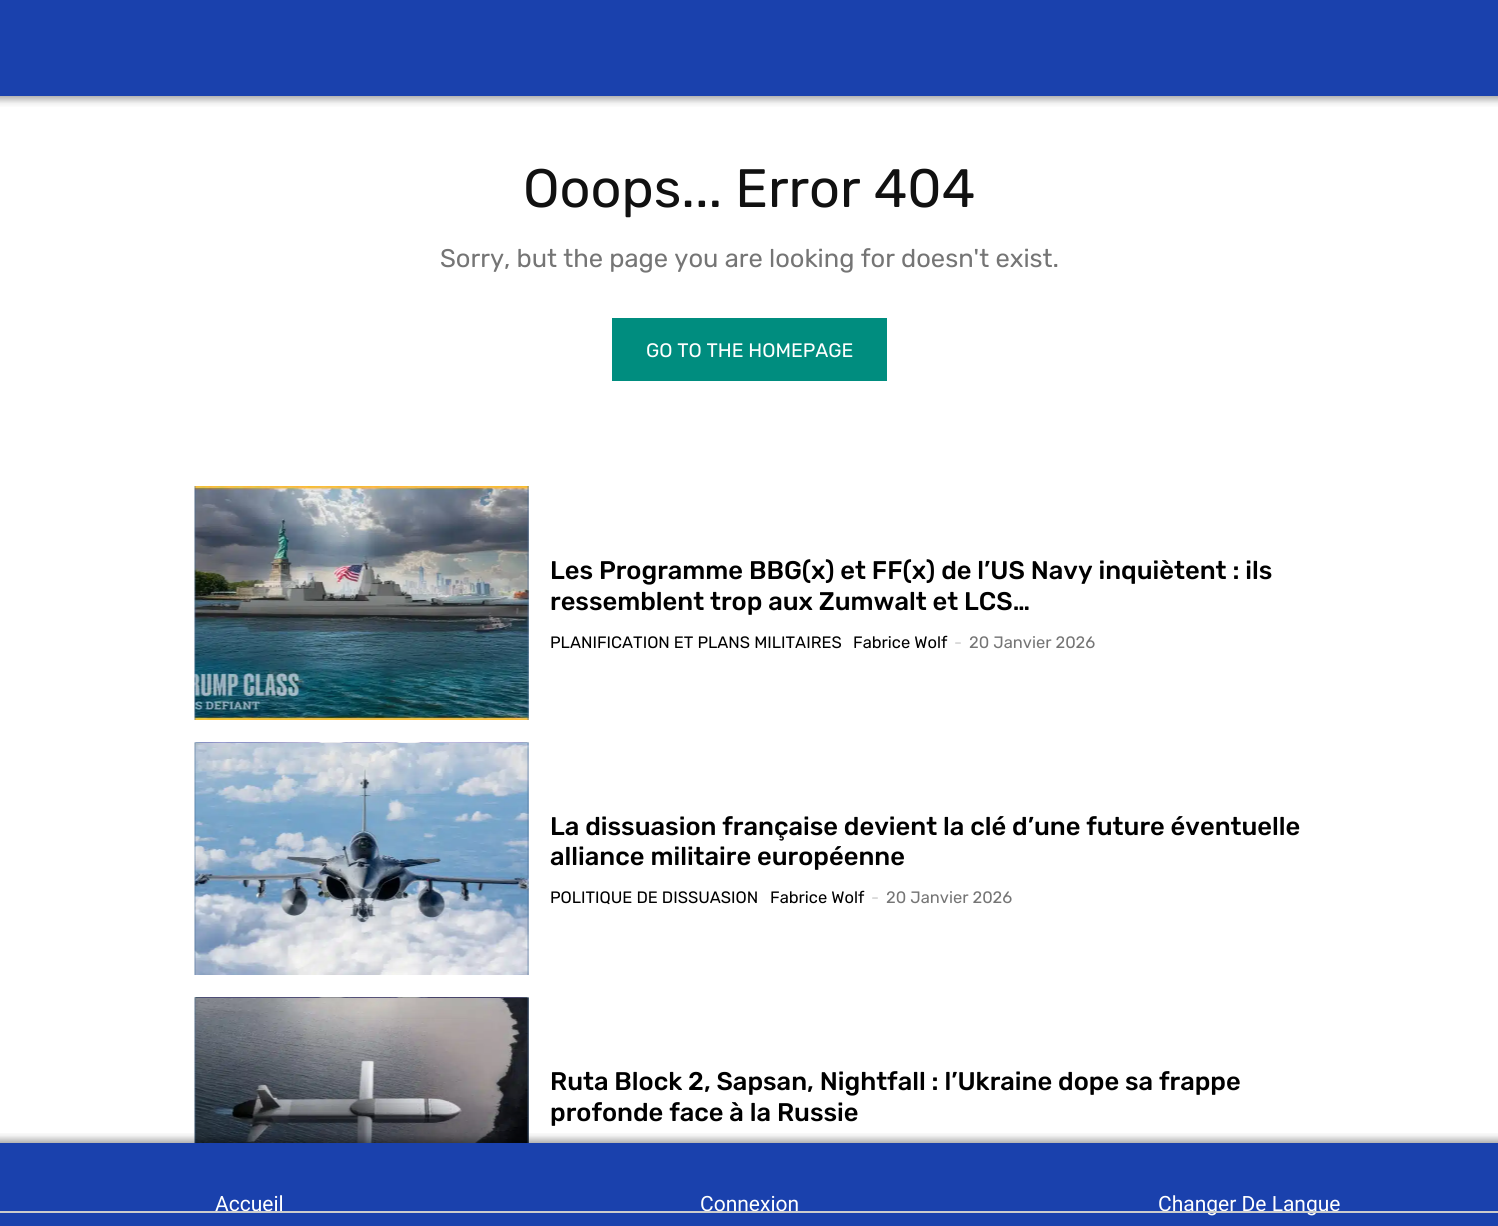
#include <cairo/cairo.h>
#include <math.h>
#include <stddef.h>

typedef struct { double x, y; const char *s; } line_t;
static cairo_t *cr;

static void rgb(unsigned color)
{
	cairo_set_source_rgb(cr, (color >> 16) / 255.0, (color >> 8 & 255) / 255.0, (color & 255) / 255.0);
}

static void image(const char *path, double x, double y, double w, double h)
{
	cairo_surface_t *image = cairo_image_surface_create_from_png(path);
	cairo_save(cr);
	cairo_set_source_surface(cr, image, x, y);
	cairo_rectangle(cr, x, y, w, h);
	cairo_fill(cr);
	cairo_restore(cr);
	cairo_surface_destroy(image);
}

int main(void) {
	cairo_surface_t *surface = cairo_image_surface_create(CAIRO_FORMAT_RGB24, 1498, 1226);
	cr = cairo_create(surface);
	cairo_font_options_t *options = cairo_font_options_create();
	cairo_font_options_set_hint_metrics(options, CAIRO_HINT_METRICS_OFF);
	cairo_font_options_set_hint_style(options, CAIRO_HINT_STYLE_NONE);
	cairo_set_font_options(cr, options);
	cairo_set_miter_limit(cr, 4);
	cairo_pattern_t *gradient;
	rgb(0xffffff);
	cairo_paint(cr);
	rgb(0x1a41ad);
	cairo_rectangle(cr, 0, 0, 1498, 96);
	cairo_fill(cr);
	gradient = cairo_pattern_create_linear(749, 96, 749, 111);
	cairo_pattern_add_color_stop_rgba(gradient, 0, 0.702, 0.702, 0.702, 1);
	cairo_pattern_add_color_stop_rgba(gradient, 0.4, 0.902, 0.902, 0.902, 1);
	cairo_pattern_add_color_stop_rgba(gradient, 0.5, 0.949, 0.949, 0.949, 1);
	cairo_pattern_add_color_stop_rgba(gradient, 0.8, 1, 1, 1, 1);
	cairo_pattern_add_color_stop_rgba(gradient, 1, 1, 1, 1, 1);
	cairo_set_source(cr, gradient);
	cairo_pattern_destroy(gradient);
	cairo_rectangle(cr, 0, 96, 1498, 11);
	cairo_fill(cr);
	rgb(0x008d7f);
	cairo_rectangle(cr, 612, 318, 275, 63);
	cairo_fill(cr);
	image("img/1.png", 194, 486, 335, 234);
	image("img/2.png", 194, 486, 335, 234);
	image("img/3.png", 194, 742, 335, 233);
	image("img/4.png", 194, 742, 335, 233);
	image("img/5.png", 194, 997, 335, 146);
	image("img/6.png", 194, 997, 335, 146);
	rgb(0x1a41ad);
	cairo_rectangle(cr, 0, 1143, 1498, 83);
	cairo_fill(cr);
	gradient = cairo_pattern_create_linear(749, 1143, 749, 1128);
	cairo_pattern_add_color_stop_rgba(gradient, 0, 0, 0, 0, 0.3);
	cairo_pattern_add_color_stop_rgba(gradient, 0.4, 0, 0, 0, 0.1);
	cairo_pattern_add_color_stop_rgba(gradient, 0.5, 0, 0, 0, 0.05);
	cairo_pattern_add_color_stop_rgba(gradient, 0.8, 0, 0, 0, 0);
	cairo_pattern_add_color_stop_rgba(gradient, 1, 0, 0, 0, 0);
	cairo_set_source(cr, gradient);
	cairo_pattern_destroy(gradient);
	cairo_rectangle(cr, 0, 1133, 1498, 10);
	cairo_fill(cr);
	cairo_select_font_face(cr, "Rubik", CAIRO_FONT_SLANT_NORMAL, CAIRO_FONT_WEIGHT_NORMAL);
	cairo_set_font_size(cr, 54);
	rgb(0x111111);
	cairo_move_to(cr, 523, 207);
	cairo_show_text(cr, "Ooops... Error 404");
	cairo_set_font_size(cr, 25.5);
	rgb(0x757575);
	cairo_move_to(cr, 440, 267);
	cairo_show_text(cr, "Sorry, but the page you are looking for doesn't exist.");
	cairo_set_font_size(cr, 19.5);
	rgb(0xffffff);
	cairo_move_to(cr, 646, 357);
	cairo_show_text(cr, "GO TO THE HOMEPAGE");
	cairo_select_font_face(cr, "Rubik Medium", CAIRO_FONT_SLANT_NORMAL, CAIRO_FONT_WEIGHT_NORMAL);
	cairo_set_font_size(cr, 25.5);
	rgb(0x000000);
	cairo_move_to(cr, 550, 579);
	cairo_show_text(cr, "Les Programme BBG(x) et FF(x) de l’US Navy inquiètent : ils");
	cairo_move_to(cr, 550, 610);
	cairo_show_text(cr, "ressemblent trop aux Zumwalt et LCS…");
	cairo_select_font_face(cr, "Rubik", CAIRO_FONT_SLANT_NORMAL, CAIRO_FONT_WEIGHT_NORMAL);
	cairo_set_font_size(cr, 16.5);
	cairo_move_to(cr, 550, 648);
	cairo_show_text(cr, "PLANIFICATION ET PLANS MILITAIRES");
	cairo_move_to(cr, 853, 648);
	cairo_show_text(cr, "Fabrice Wolf");
	rgb(0xcccccc);
	cairo_move_to(cr, 954, 648);
	cairo_show_text(cr, "-");
	rgb(0x757575);
	cairo_move_to(cr, 969, 648);
	cairo_show_text(cr, "20 Janvier 2026");
	cairo_select_font_face(cr, "Rubik Medium", CAIRO_FONT_SLANT_NORMAL, CAIRO_FONT_WEIGHT_NORMAL);
	cairo_set_font_size(cr, 25.5);
	rgb(0x000000);
	cairo_move_to(cr, 550, 835);
	cairo_show_text(cr, "La dissuasion française devient la clé d’une future éventuelle");
	cairo_move_to(cr, 550, 865);
	cairo_show_text(cr, "alliance militaire européenne");
	cairo_select_font_face(cr, "Rubik", CAIRO_FONT_SLANT_NORMAL, CAIRO_FONT_WEIGHT_NORMAL);
	cairo_set_font_size(cr, 16.5);
	cairo_move_to(cr, 550, 903);
	cairo_show_text(cr, "POLITIQUE DE DISSUASION");
	cairo_move_to(cr, 770, 903);
	cairo_show_text(cr, "Fabrice Wolf");
	rgb(0xcccccc);
	cairo_move_to(cr, 871, 903);
	cairo_show_text(cr, "-");
	rgb(0x757575);
	cairo_move_to(cr, 886, 903);
	cairo_show_text(cr, "20 Janvier 2026");
	cairo_select_font_face(cr, "Rubik Medium", CAIRO_FONT_SLANT_NORMAL, CAIRO_FONT_WEIGHT_NORMAL);
	cairo_set_font_size(cr, 25.5);
	rgb(0x000000);
	cairo_move_to(cr, 550, 1090);
	cairo_show_text(cr, "Ruta Block 2, Sapsan, Nightfall : l’Ukraine dope sa frappe");
	cairo_move_to(cr, 550, 1121);
	cairo_show_text(cr, "profonde face à la Russie");
	cairo_select_font_face(cr, "Roboto", CAIRO_FONT_SLANT_NORMAL, CAIRO_FONT_WEIGHT_NORMAL);
	cairo_set_font_size(cr, 21);
	rgb(0xffffff);
	{
		static const line_t items[] = {
			{215, 1211, "Accueil"},
			{700, 1211, "Connexion"},
			{1158, 1211, "Changer De Langue"},
		};
		for (size_t i = 0; i < sizeof items / sizeof *items; i++) {
			cairo_move_to(cr, items[i].x, items[i].y);
			cairo_show_text(cr, items[i].s);
		}
	}
	rgb(0xcccccc);
	cairo_rectangle(cr, 0, 1211, 1498, 2);
	cairo_fill(cr);
	cairo_surface_write_to_png(surface, "page.png");
	cairo_font_options_destroy(options);
	cairo_destroy(cr);
	cairo_surface_destroy(surface);
	return 0;
}
